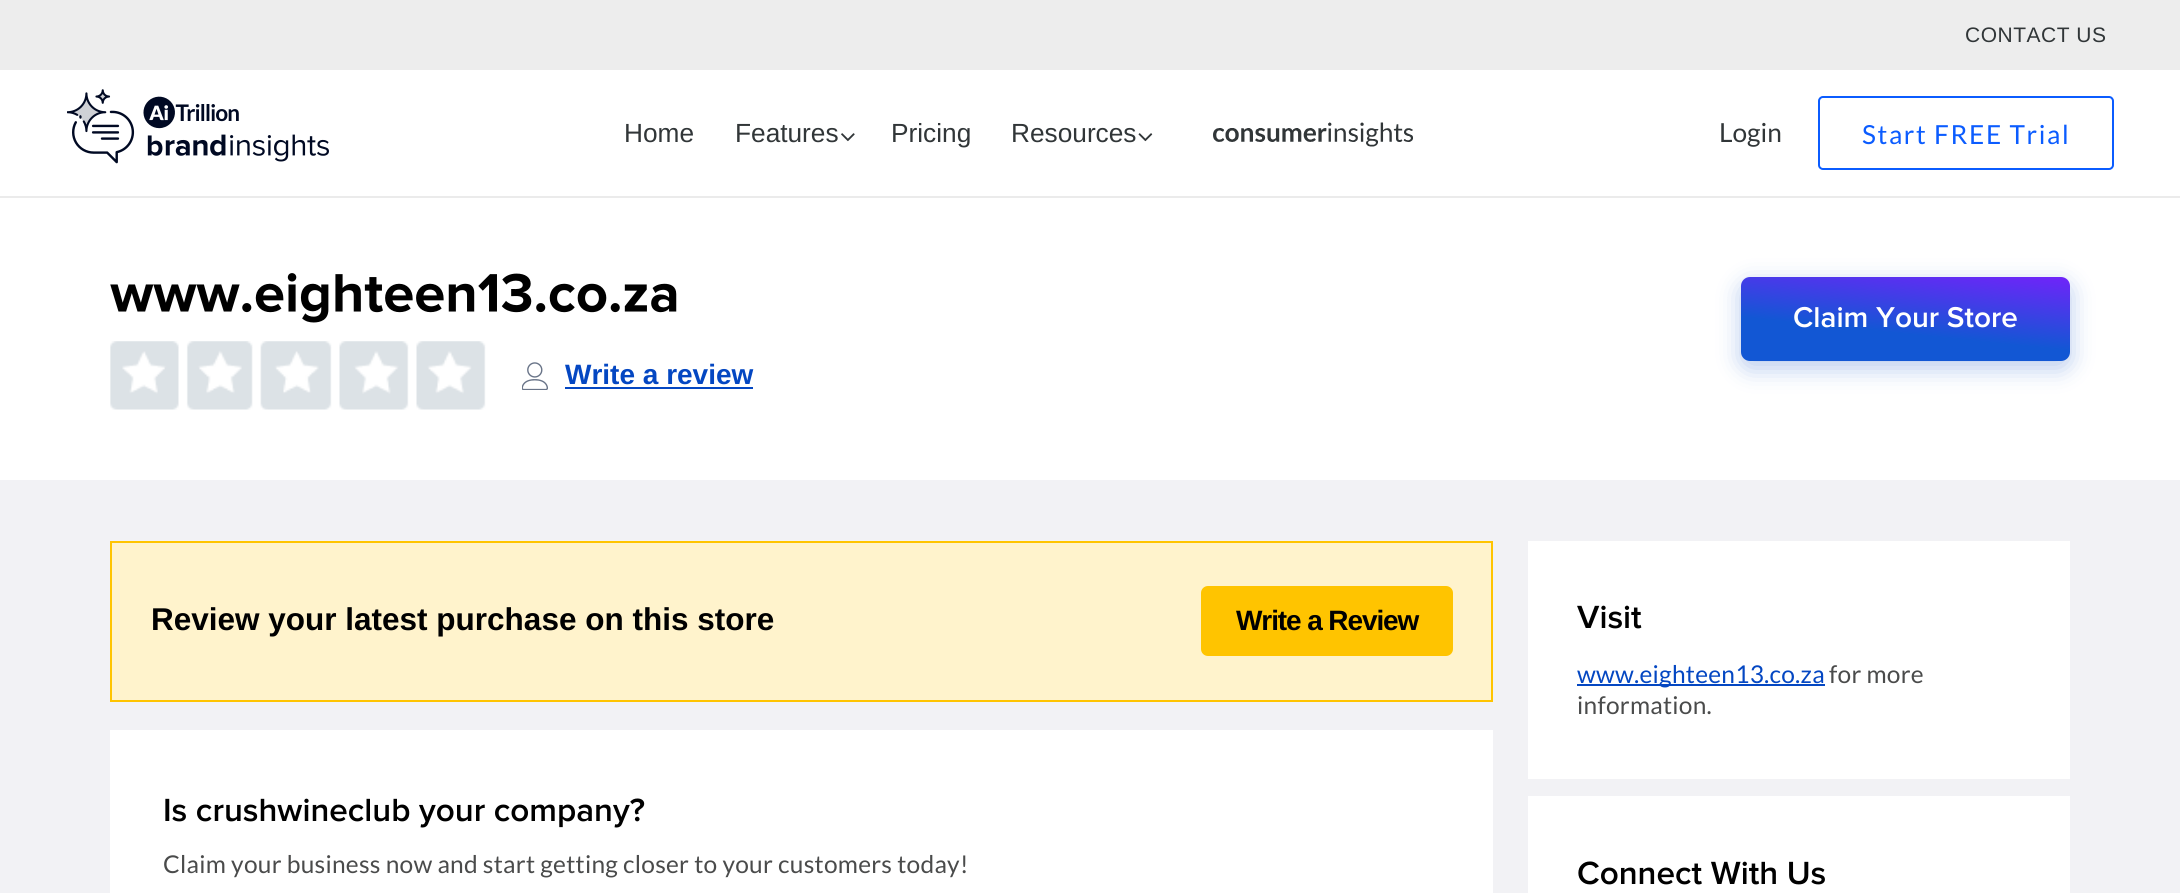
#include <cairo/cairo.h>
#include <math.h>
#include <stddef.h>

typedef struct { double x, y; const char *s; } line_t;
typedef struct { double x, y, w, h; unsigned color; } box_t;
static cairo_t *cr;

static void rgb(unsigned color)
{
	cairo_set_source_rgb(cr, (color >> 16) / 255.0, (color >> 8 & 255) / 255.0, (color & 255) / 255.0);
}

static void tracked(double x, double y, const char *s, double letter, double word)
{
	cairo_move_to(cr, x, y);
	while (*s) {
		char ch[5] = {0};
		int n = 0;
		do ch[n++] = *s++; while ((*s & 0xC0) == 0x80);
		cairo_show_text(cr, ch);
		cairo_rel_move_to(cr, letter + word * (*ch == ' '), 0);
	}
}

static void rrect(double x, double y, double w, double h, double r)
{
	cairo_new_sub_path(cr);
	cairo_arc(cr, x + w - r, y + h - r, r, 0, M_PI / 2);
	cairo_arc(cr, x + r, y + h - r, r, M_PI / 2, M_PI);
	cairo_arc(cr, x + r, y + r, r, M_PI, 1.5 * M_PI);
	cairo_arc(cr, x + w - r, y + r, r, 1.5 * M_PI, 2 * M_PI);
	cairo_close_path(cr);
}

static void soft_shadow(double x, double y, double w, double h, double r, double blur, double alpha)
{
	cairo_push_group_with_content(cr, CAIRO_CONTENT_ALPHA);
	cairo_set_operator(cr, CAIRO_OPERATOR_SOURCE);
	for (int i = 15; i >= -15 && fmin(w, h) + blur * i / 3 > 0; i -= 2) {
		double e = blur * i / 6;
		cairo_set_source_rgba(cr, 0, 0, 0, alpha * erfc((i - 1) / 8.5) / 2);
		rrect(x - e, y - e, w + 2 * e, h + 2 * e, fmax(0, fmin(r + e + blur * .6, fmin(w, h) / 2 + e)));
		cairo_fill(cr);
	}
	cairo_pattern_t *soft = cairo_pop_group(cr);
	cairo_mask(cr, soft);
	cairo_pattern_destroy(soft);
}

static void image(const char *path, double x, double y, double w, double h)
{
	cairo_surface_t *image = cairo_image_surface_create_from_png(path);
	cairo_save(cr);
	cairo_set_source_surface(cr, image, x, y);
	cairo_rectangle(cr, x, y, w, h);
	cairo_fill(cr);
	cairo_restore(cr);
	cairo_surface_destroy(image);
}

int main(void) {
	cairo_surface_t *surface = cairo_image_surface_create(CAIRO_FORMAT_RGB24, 2180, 893);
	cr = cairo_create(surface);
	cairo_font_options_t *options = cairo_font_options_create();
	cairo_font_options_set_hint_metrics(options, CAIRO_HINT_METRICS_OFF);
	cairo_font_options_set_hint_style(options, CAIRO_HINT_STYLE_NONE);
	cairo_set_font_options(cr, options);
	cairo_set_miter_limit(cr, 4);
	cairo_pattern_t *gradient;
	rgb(0xffffff);
	cairo_paint(cr);
	rgb(0xededed);
	cairo_rectangle(cr, 0, 0, 2180, 70);
	cairo_fill(cr);
	image("img/1.png", 67, 89, 262, 75);
	image("img/2.png", 841, 133, 14, 9);
	image("img/3.png", 1138, 133, 15, 9);
	image("img/4.png", 1213, 122, 200, 25);
	rrect(1819, 97, 294, 72, 4);
	rgb(0x0b5cff);
	cairo_stroke(cr);
	rgb(0xebebeb);
	cairo_rectangle(cr, 0, 196, 2180, 2);
	cairo_fill(cr);
	rgb(0x0447c2);
	soft_shadow(1741, 284, 329, 84, 9, 12, 0.29);
	gradient = cairo_pattern_create_linear(1900, 377, 1913, 250);
	cairo_pattern_add_color_stop_rgba(gradient, 0.34, 0.071, 0.341, 0.831, 1);
	cairo_pattern_add_color_stop_rgba(gradient, 1, 0.494, 0.11, 1, 1);
	cairo_set_source(cr, gradient);
	cairo_pattern_destroy(gradient);
	rrect(1741, 277, 329, 84, 9);
	cairo_fill(cr);
	image("img/5.png", 110, 273, 567, 50);
	image("img/6.png", 110, 341, 376, 69);
	image("img/7.png", 522, 362, 26, 28);
	rgb(0x0447c2);
	cairo_rectangle(cr, 565, 387, 188, 2);
	cairo_fill(cr);
	rgb(0xf2f2f5);
	cairo_rectangle(cr, 0, 480, 2180, 413);
	cairo_fill(cr);
	rgb(0xfff3cc);
	cairo_rectangle(cr, 111, 542, 1381, 159);
	cairo_fill_preserve(cr);
	rgb(0xffc400);
	cairo_stroke(cr);
	rrect(1201, 586, 252, 70, 7);
	cairo_fill(cr);
	{
		static const box_t items[] = {
			{110, 730, 1383, 163, 0xffffff},
			{1528, 541, 542, 238, 0xffffff},
			{1577, 684, 248, 2, 0x0447c2},
			{1528, 796, 542, 97, 0xffffff},
		};
		for (size_t i = 0; i < sizeof items / sizeof *items; i++) {
			rgb(items[i].color);
			cairo_rectangle(cr, items[i].x, items[i].y, items[i].w, items[i].h);
			cairo_fill(cr);
		}
	}
	cairo_select_font_face(cr, "Liberation Sans", CAIRO_FONT_SLANT_NORMAL, CAIRO_FONT_WEIGHT_NORMAL);
	cairo_set_font_size(cr, 21);
	rgb(0x313638);
	tracked(1965, 42, "CONTACT US", 0.5, 0);
	cairo_set_font_size(cr, 26.25);
	{
		static const line_t items[] = {
			{624, 142, "Home"},
			{735, 142, "Features"},
			{891, 142, "Pricing"},
			{1011, 142, "Resources"},
		};
		for (size_t i = 0; i < sizeof items / sizeof *items; i++) {
			cairo_move_to(cr, items[i].x, items[i].y);
			cairo_show_text(cr, items[i].s);
		}
	}
	cairo_select_font_face(cr, "Lato", CAIRO_FONT_SLANT_NORMAL, CAIRO_FONT_WEIGHT_NORMAL);
	cairo_move_to(cr, 1719, 142);
	cairo_show_text(cr, "Login");
	rgb(0x0b5cff);
	tracked(1862, 144, "Start FREE Trial", 1.6, 0);
	cairo_select_font_face(cr, "Proxima Nova SemiBold", CAIRO_FONT_SLANT_NORMAL, CAIRO_FONT_WEIGHT_NORMAL);
	cairo_set_font_size(cr, 29.75);
	rgb(0xffffff);
	cairo_move_to(cr, 1793, 327);
	cairo_show_text(cr, "Claim Your Store");
	cairo_select_font_face(cr, "Arimo", CAIRO_FONT_SLANT_NORMAL, CAIRO_FONT_WEIGHT_BOLD);
	cairo_set_font_size(cr, 28);
	rgb(0x0447c2);
	cairo_move_to(cr, 565, 384);
	cairo_show_text(cr, "Write a review");
	cairo_set_font_size(cr, 31.5);
	rgb(0x000000);
	cairo_move_to(cr, 151, 630);
	cairo_show_text(cr, "Review your latest purchase on this store");
	cairo_set_font_size(cr, 28);
	tracked(1236, 630, "Write a Review", -1.1, 0);
	cairo_select_font_face(cr, "Proxima Nova SemiBold", CAIRO_FONT_SLANT_NORMAL, CAIRO_FONT_WEIGHT_NORMAL);
	cairo_set_font_size(cr, 33.25);
	cairo_move_to(cr, 163, 821);
	cairo_show_text(cr, "Is crushwineclub your company?");
	cairo_select_font_face(cr, "Lato", CAIRO_FONT_SLANT_NORMAL, CAIRO_FONT_WEIGHT_NORMAL);
	cairo_set_font_size(cr, 24.5);
	rgb(0x4a4b4b);
	tracked(163, 873, "Claim your business now and start getting closer to your customers today!", 0.25, 0);
	cairo_select_font_face(cr, "Proxima Nova SemiBold", CAIRO_FONT_SLANT_NORMAL, CAIRO_FONT_WEIGHT_NORMAL);
	cairo_set_font_size(cr, 33.25);
	rgb(0x000000);
	cairo_move_to(cr, 1577, 628);
	cairo_show_text(cr, "Visit");
	cairo_select_font_face(cr, "Lato", CAIRO_FONT_SLANT_NORMAL, CAIRO_FONT_WEIGHT_NORMAL);
	cairo_set_font_size(cr, 24.5);
	rgb(0x0447c2);
	tracked(1577, 683, "www.eighteen13.co.za", 0.25, 0);
	rgb(0x4a4b4b);
	tracked(1829, 683, "for more", 0.25, 0);
	tracked(1577, 714, "information.", 0.25, 0);
	cairo_select_font_face(cr, "Proxima Nova SemiBold", CAIRO_FONT_SLANT_NORMAL, CAIRO_FONT_WEIGHT_NORMAL);
	cairo_set_font_size(cr, 33.25);
	rgb(0x000000);
	cairo_move_to(cr, 1577, 884);
	cairo_show_text(cr, "Connect With Us");
	cairo_surface_write_to_png(surface, "page.png");
	cairo_font_options_destroy(options);
	cairo_destroy(cr);
	cairo_surface_destroy(surface);
	return 0;
}
